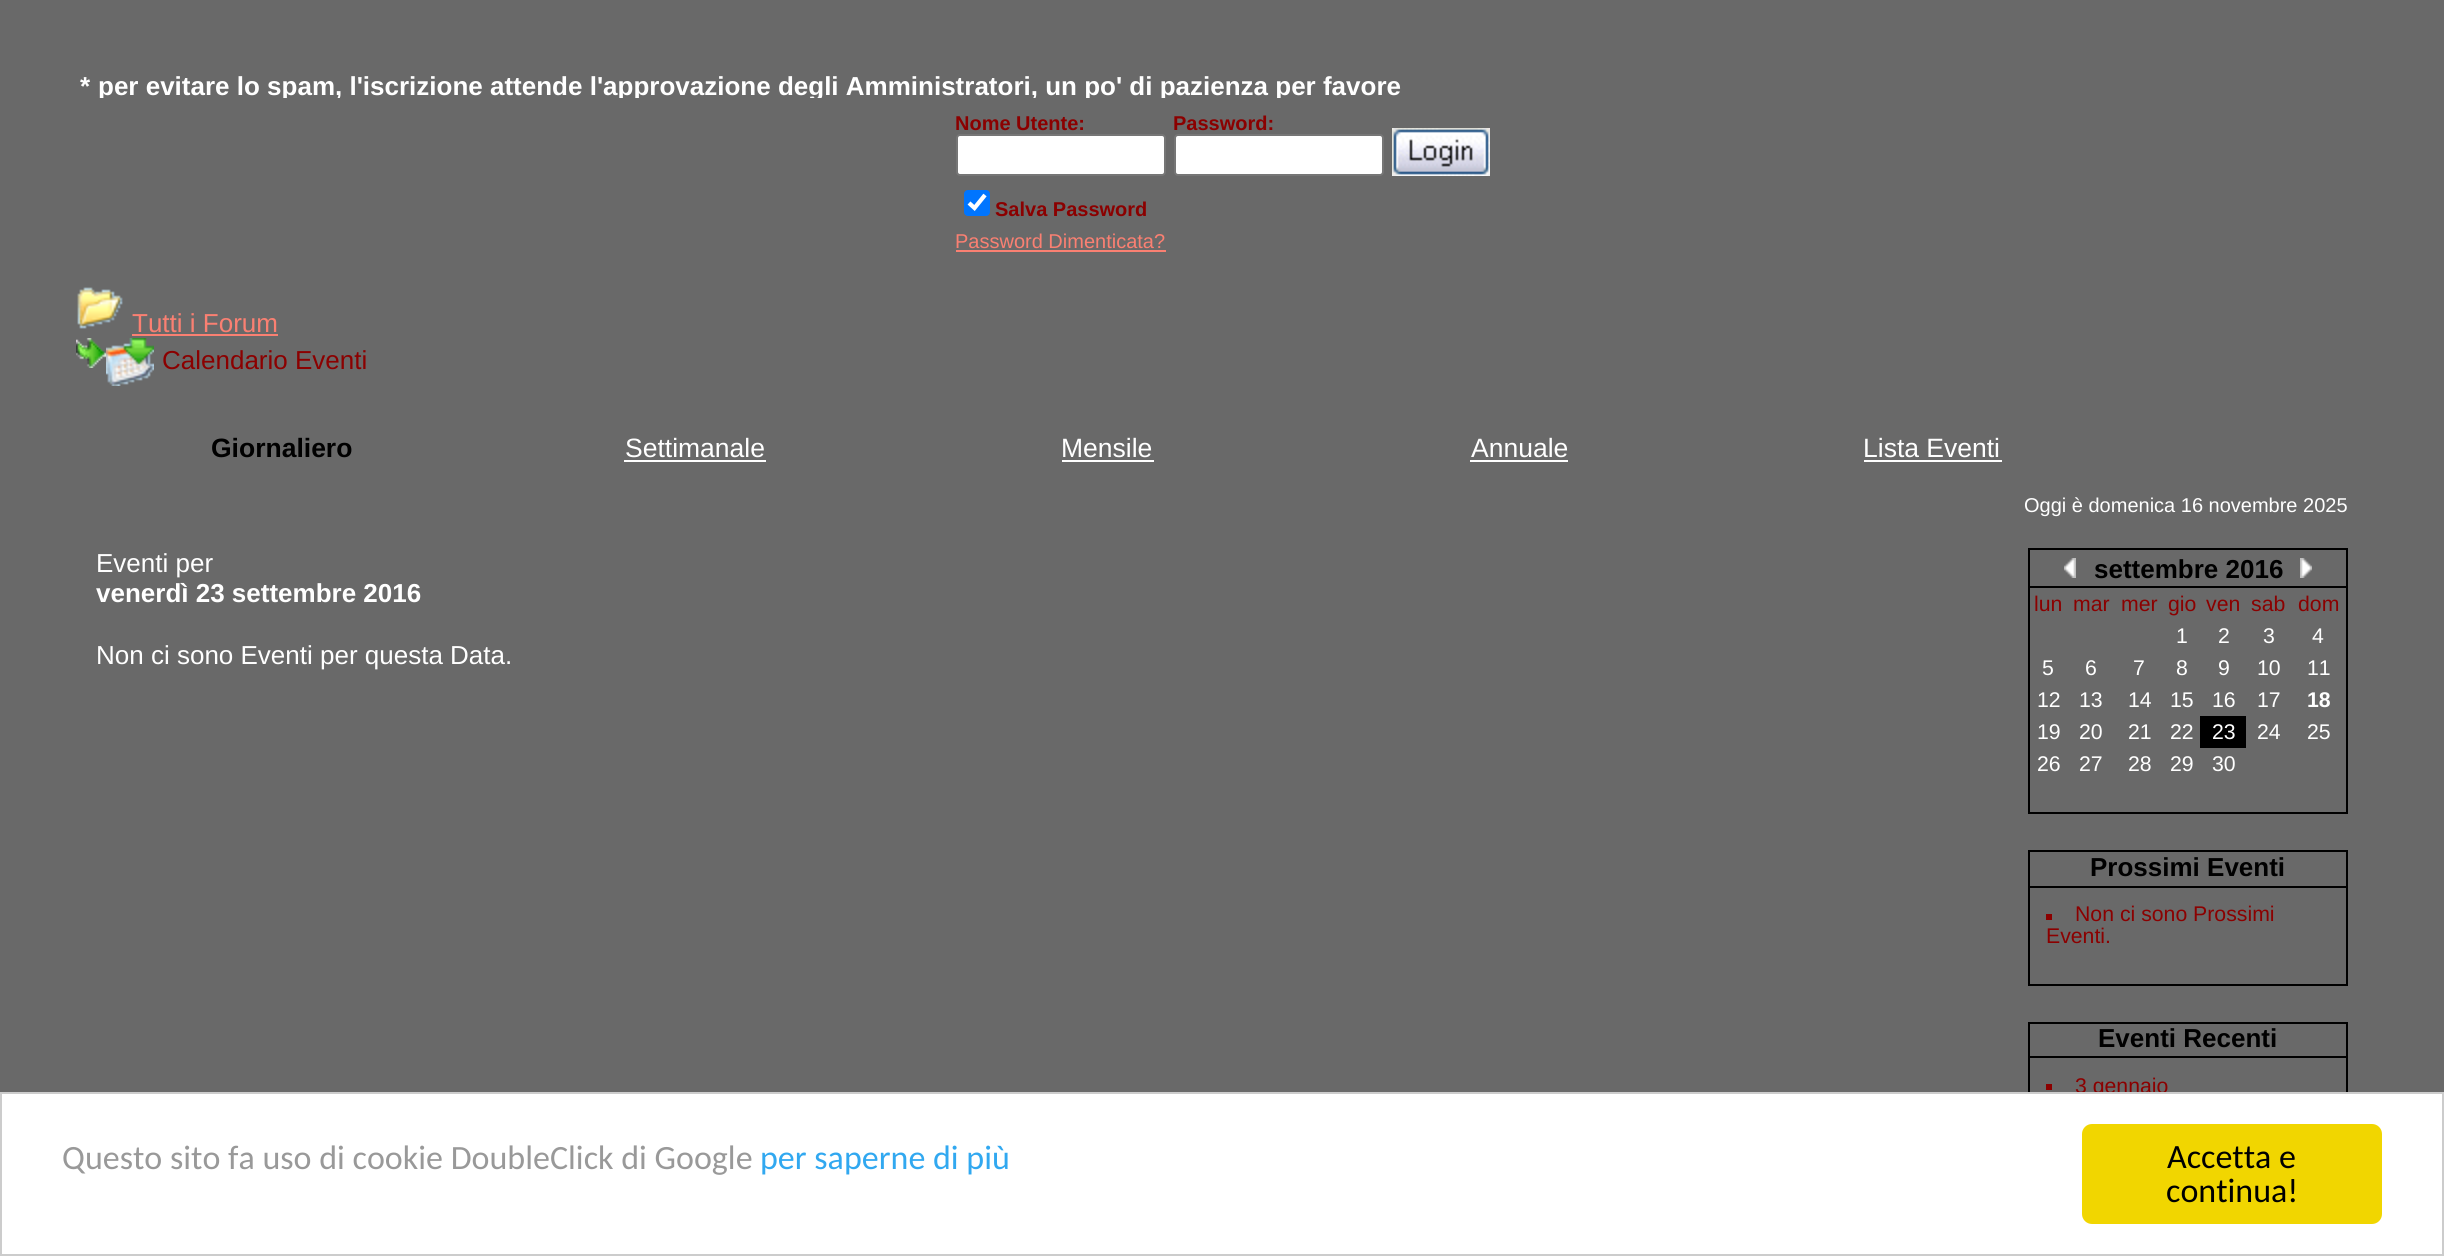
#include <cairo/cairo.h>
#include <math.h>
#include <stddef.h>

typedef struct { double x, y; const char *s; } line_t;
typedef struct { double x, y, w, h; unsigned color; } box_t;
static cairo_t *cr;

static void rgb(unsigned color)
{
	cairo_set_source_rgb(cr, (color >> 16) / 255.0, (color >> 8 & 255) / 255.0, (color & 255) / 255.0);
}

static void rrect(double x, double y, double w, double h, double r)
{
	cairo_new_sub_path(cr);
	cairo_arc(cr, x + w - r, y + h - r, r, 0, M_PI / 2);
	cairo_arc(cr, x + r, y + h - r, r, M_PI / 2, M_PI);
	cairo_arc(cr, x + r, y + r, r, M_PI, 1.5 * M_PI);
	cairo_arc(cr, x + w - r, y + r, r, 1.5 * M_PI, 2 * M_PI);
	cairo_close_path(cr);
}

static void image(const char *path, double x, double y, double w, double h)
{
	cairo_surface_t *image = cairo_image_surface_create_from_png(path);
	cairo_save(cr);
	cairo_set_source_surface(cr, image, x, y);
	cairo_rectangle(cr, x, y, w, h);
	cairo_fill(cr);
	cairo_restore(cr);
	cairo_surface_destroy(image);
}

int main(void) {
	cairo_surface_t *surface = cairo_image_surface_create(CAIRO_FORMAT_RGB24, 2444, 1256);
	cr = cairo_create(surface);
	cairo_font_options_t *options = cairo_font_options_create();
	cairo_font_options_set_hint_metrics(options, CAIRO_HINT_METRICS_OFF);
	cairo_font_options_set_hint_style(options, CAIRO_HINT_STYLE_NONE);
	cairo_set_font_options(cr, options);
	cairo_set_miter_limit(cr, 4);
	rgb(0x696969);
	cairo_paint(cr);
	rgb(0xffffff);
	rrect(957, 135, 208, 40, 3);
	cairo_fill_preserve(cr);
	rgb(0x767676);
	cairo_stroke(cr);
	rgb(0xffffff);
	rrect(1175, 135, 208, 40, 3);
	cairo_fill_preserve(cr);
	rgb(0x767676);
	cairo_stroke(cr);
	image("img/1.png", 1392, 128, 98, 48);
	rgb(0x0075ff);
	rrect(964, 190, 26, 26, 4);
	cairo_fill(cr);
	cairo_new_path(cr);
	cairo_move_to(cr, 969, 203);
	cairo_line_to(cr, 974.5, 208);
	cairo_line_to(cr, 985, 195);
	rgb(0xffffff);
	cairo_set_line_width(cr, 4.2);
	cairo_stroke(cr);
	rgb(0xfa8072);
	cairo_rectangle(cr, 956, 250, 210, 2);
	cairo_fill(cr);
	image("img/2.png", 77, 287, 46, 42);
	cairo_rectangle(cr, 132, 334, 146, 2);
	cairo_fill(cr);
	image("img/3.png", 76, 338, 30, 30);
	image("img/4.png", 106, 338, 48, 48);
	{
		static const box_t items[] = {
			{624, 460, 142, 2, 0xffffff},
			{1062, 460, 92, 2, 0xffffff},
			{1470, 460, 98, 2, 0xffffff},
			{1864, 460, 138, 2, 0xffffff},
			{2028, 548, 320, 266, 0x000000},
			{2030, 550, 316, 36, 0x696969},
		};
		for (size_t i = 0; i < sizeof items / sizeof *items; i++) {
			rgb(items[i].color);
			cairo_rectangle(cr, items[i].x, items[i].y, items[i].w, items[i].h);
			cairo_fill(cr);
		}
	}
	image("img/5.png", 2064, 558, 12, 20);
	image("img/6.png", 2300, 558, 12, 20);
	{
		static const box_t items[] = {
			{2030, 588, 316, 224, 0x696969},
			{2200, 716, 46, 32, 0x000000},
			{2028, 850, 320, 136, 0x000000},
			{2030, 852, 316, 34, 0x696969},
			{2030, 888, 316, 96, 0x696969},
			{2046, 914, 6, 6, 0x8b0000},
			{2028, 1022, 320, 70, 0x000000},
			{2030, 1024, 316, 32, 0x696969},
			{2030, 1058, 316, 34, 0x696969},
			{2046, 1084, 6, 6, 0x8b0000},
		};
		for (size_t i = 0; i < sizeof items / sizeof *items; i++) {
			rgb(items[i].color);
			cairo_rectangle(cr, items[i].x, items[i].y, items[i].w, items[i].h);
			cairo_fill(cr);
		}
	}
	cairo_select_font_face(cr, "Liberation Sans", CAIRO_FONT_SLANT_NORMAL, CAIRO_FONT_WEIGHT_BOLD);
	cairo_set_font_size(cr, 26);
	rgb(0xffffff);
	cairo_move_to(cr, 80, 95);
	cairo_show_text(cr, "*");
	cairo_save(cr);
	cairo_rectangle(cr, 80, 0, 2284, 98);
	cairo_clip(cr);
	cairo_move_to(cr, 98, 95);
	cairo_show_text(cr, "per evitare lo spam, l'iscrizione attende l'approvazione degli Amministratori, un po' di pazienza per favore");
	cairo_restore(cr);
	cairo_set_font_size(cr, 20);
	rgb(0x8b0000);
	{
		static const line_t items[] = {
			{955, 130, "Nome Utente:"},
			{1173, 130, "Password:"},
			{995, 216, "Salva Password"},
		};
		for (size_t i = 0; i < sizeof items / sizeof *items; i++) {
			cairo_move_to(cr, items[i].x, items[i].y);
			cairo_show_text(cr, items[i].s);
		}
	}
	cairo_select_font_face(cr, "Liberation Sans", CAIRO_FONT_SLANT_NORMAL, CAIRO_FONT_WEIGHT_NORMAL);
	rgb(0xfa8072);
	cairo_move_to(cr, 955, 248);
	cairo_show_text(cr, "Password Dimenticata?");
	cairo_set_font_size(cr, 26);
	cairo_move_to(cr, 132, 332);
	cairo_show_text(cr, "Tutti i Forum");
	rgb(0x8b0000);
	cairo_move_to(cr, 162, 369);
	cairo_show_text(cr, "Calendario Eventi");
	cairo_select_font_face(cr, "Liberation Sans", CAIRO_FONT_SLANT_NORMAL, CAIRO_FONT_WEIGHT_BOLD);
	cairo_set_font_size(cr, 26.5);
	rgb(0x000000);
	cairo_move_to(cr, 211, 457);
	cairo_show_text(cr, "Giornaliero");
	cairo_select_font_face(cr, "Liberation Sans", CAIRO_FONT_SLANT_NORMAL, CAIRO_FONT_WEIGHT_NORMAL);
	rgb(0xffffff);
	{
		static const line_t items[] = {
			{625, 457, "Settimanale"},
			{1061, 457, "Mensile"},
			{1471, 457, "Annuale"},
			{1863, 457, "Lista Eventi"},
		};
		for (size_t i = 0; i < sizeof items / sizeof *items; i++) {
			cairo_move_to(cr, items[i].x, items[i].y);
			cairo_show_text(cr, items[i].s);
		}
	}
	cairo_set_font_size(cr, 20);
	cairo_move_to(cr, 2024, 512);
	cairo_show_text(cr, "Oggi è domenica 16 novembre 2025");
	cairo_set_font_size(cr, 26);
	cairo_move_to(cr, 96, 572);
	cairo_show_text(cr, "Eventi per");
	cairo_select_font_face(cr, "Liberation Sans", CAIRO_FONT_SLANT_NORMAL, CAIRO_FONT_WEIGHT_BOLD);
	cairo_move_to(cr, 96, 602);
	cairo_show_text(cr, "venerdì 23 settembre 2016");
	cairo_select_font_face(cr, "Liberation Sans", CAIRO_FONT_SLANT_NORMAL, CAIRO_FONT_WEIGHT_NORMAL);
	cairo_move_to(cr, 96, 664);
	cairo_show_text(cr, "Non ci sono Eventi per questa Data.");
	cairo_select_font_face(cr, "Liberation Sans", CAIRO_FONT_SLANT_NORMAL, CAIRO_FONT_WEIGHT_BOLD);
	rgb(0x000000);
	cairo_move_to(cr, 2094, 578);
	cairo_show_text(cr, "settembre 2016");
	cairo_select_font_face(cr, "Liberation Sans", CAIRO_FONT_SLANT_NORMAL, CAIRO_FONT_WEIGHT_NORMAL);
	cairo_set_font_size(cr, 21.25);
	rgb(0x8b0000);
	{
		static const line_t items[] = {
			{2034, 611, "lun"},
			{2073, 611, "mar"},
			{2121, 611, "mer"},
			{2168, 611, "gio"},
			{2206, 611, "ven"},
			{2251, 611, "sab"},
			{2298, 611, "dom"},
		};
		for (size_t i = 0; i < sizeof items / sizeof *items; i++) {
			cairo_move_to(cr, items[i].x, items[i].y);
			cairo_show_text(cr, items[i].s);
		}
	}
	rgb(0xffffff);
	{
		static const line_t items[] = {
			{2176, 643, "1"},
			{2218, 643, "2"},
			{2263, 643, "3"},
			{2312, 643, "4"},
			{2042, 675, "5"},
			{2085, 675, "6"},
			{2133, 675, "7"},
			{2176, 675, "8"},
			{2218, 675, "9"},
			{2257, 675, "10"},
			{2307, 675, "11"},
			{2037, 707, "12"},
			{2079, 707, "13"},
			{2128, 707, "14"},
			{2170, 707, "15"},
			{2212, 707, "16"},
			{2257, 707, "17"},
		};
		for (size_t i = 0; i < sizeof items / sizeof *items; i++) {
			cairo_move_to(cr, items[i].x, items[i].y);
			cairo_show_text(cr, items[i].s);
		}
	}
	cairo_select_font_face(cr, "Liberation Sans", CAIRO_FONT_SLANT_NORMAL, CAIRO_FONT_WEIGHT_BOLD);
	cairo_move_to(cr, 2307, 707);
	cairo_show_text(cr, "18");
	cairo_select_font_face(cr, "Liberation Sans", CAIRO_FONT_SLANT_NORMAL, CAIRO_FONT_WEIGHT_NORMAL);
	{
		static const line_t items[] = {
			{2037, 739, "19"},
			{2079, 739, "20"},
			{2128, 739, "21"},
			{2170, 739, "22"},
			{2212, 739, "23"},
			{2257, 739, "24"},
			{2307, 739, "25"},
			{2037, 771, "26"},
			{2079, 771, "27"},
			{2128, 771, "28"},
			{2170, 771, "29"},
			{2212, 771, "30"},
		};
		for (size_t i = 0; i < sizeof items / sizeof *items; i++) {
			cairo_move_to(cr, items[i].x, items[i].y);
			cairo_show_text(cr, items[i].s);
		}
	}
	cairo_select_font_face(cr, "Liberation Sans", CAIRO_FONT_SLANT_NORMAL, CAIRO_FONT_WEIGHT_BOLD);
	cairo_set_font_size(cr, 26);
	rgb(0x000000);
	cairo_move_to(cr, 2090, 876);
	cairo_show_text(cr, "Prossimi Eventi");
	cairo_select_font_face(cr, "Liberation Sans", CAIRO_FONT_SLANT_NORMAL, CAIRO_FONT_WEIGHT_NORMAL);
	cairo_set_font_size(cr, 21.25);
	rgb(0x8b0000);
	cairo_move_to(cr, 2075, 921);
	cairo_show_text(cr, "Non ci sono Prossimi");
	cairo_move_to(cr, 2046, 943);
	cairo_show_text(cr, "Eventi.");
	cairo_select_font_face(cr, "Liberation Sans", CAIRO_FONT_SLANT_NORMAL, CAIRO_FONT_WEIGHT_BOLD);
	cairo_set_font_size(cr, 26);
	rgb(0x000000);
	cairo_move_to(cr, 2098, 1047);
	cairo_show_text(cr, "Eventi Recenti");
	cairo_select_font_face(cr, "Liberation Sans", CAIRO_FONT_SLANT_NORMAL, CAIRO_FONT_WEIGHT_NORMAL);
	cairo_set_font_size(cr, 21.25);
	rgb(0x8b0000);
	cairo_move_to(cr, 2075, 1093);
	cairo_show_text(cr, "3 gennaio");
	rgb(0xffffff);
	cairo_rectangle(cr, 1, 1093, 2442, 162);
	cairo_fill_preserve(cr);
	rgb(0xcccccc);
	cairo_set_line_width(cr, 2);
	cairo_stroke(cr);
	cairo_select_font_face(cr, "Carlito", CAIRO_FONT_SLANT_NORMAL, CAIRO_FONT_WEIGHT_NORMAL);
	cairo_set_font_size(cr, 34);
	rgb(0x999999);
	cairo_move_to(cr, 62, 1169);
	cairo_show_text(cr, "Questo sito fa uso di cookie DoubleClick di Google");
	rgb(0x31a8f0);
	cairo_move_to(cr, 760, 1169);
	cairo_show_text(cr, "per saperne di più");
	rgb(0xf1d600);
	rrect(2082, 1124, 300, 100, 10);
	cairo_fill(cr);
	rgb(0x000000);
	cairo_move_to(cr, 2167, 1168);
	cairo_show_text(cr, "Accetta e");
	cairo_move_to(cr, 2166, 1202);
	cairo_show_text(cr, "continua!");
	cairo_surface_write_to_png(surface, "page.png");
	cairo_font_options_destroy(options);
	cairo_destroy(cr);
	cairo_surface_destroy(surface);
	return 0;
}
